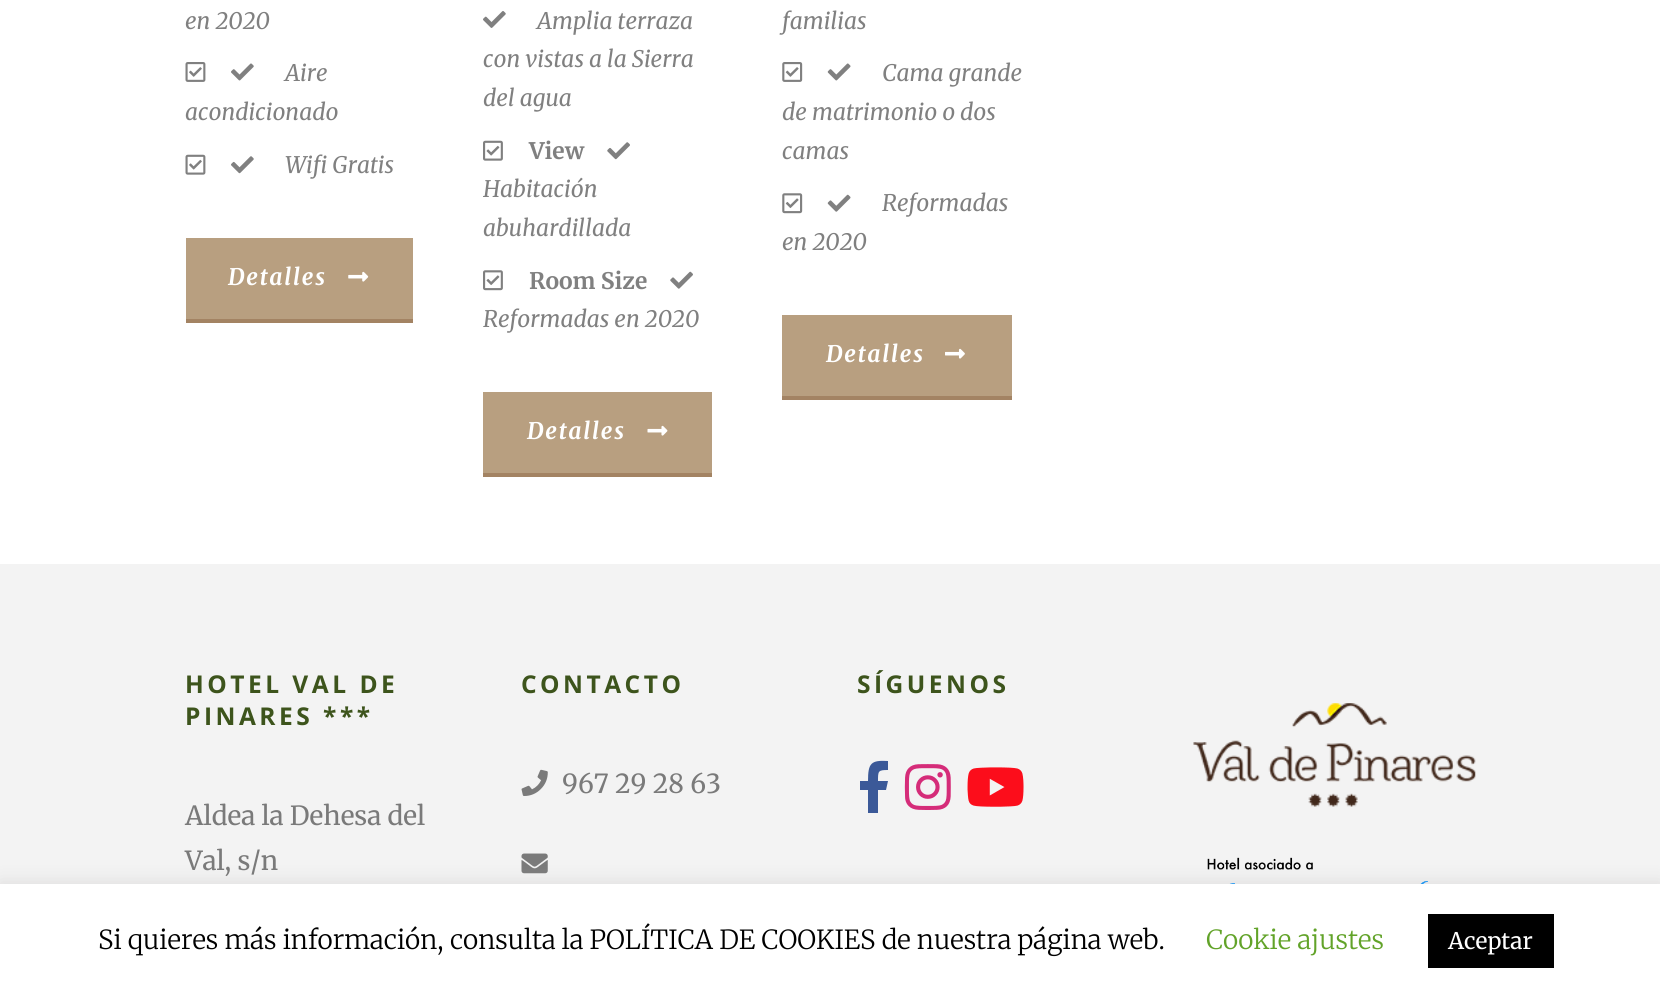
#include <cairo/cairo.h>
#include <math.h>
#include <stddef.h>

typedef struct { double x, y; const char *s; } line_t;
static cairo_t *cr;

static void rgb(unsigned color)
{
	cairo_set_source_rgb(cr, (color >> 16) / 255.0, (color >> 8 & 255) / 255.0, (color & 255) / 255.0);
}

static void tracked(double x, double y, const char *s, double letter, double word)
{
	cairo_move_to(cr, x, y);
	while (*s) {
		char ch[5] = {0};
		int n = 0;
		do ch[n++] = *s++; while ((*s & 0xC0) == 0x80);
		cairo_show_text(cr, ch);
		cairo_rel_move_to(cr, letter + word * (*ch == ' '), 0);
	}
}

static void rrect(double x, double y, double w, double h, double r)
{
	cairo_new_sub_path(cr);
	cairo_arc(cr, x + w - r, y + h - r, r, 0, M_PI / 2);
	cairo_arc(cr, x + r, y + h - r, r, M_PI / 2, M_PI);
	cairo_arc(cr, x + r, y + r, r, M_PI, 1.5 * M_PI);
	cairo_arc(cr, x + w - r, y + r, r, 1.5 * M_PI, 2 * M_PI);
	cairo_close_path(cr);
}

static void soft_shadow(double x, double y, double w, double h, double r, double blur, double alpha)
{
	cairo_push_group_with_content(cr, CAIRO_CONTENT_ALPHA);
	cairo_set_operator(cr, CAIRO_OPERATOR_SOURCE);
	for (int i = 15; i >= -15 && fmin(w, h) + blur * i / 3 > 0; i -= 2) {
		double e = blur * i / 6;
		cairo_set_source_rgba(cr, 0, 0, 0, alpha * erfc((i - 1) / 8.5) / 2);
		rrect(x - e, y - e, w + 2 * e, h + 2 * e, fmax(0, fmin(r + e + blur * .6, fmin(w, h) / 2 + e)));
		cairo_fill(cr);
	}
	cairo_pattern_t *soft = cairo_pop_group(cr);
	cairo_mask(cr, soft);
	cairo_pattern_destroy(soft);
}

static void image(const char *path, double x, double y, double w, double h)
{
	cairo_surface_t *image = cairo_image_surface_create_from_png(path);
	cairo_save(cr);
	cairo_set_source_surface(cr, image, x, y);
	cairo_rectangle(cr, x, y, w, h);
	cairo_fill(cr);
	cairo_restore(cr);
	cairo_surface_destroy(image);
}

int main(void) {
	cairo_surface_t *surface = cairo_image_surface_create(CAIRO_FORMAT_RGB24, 1660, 996);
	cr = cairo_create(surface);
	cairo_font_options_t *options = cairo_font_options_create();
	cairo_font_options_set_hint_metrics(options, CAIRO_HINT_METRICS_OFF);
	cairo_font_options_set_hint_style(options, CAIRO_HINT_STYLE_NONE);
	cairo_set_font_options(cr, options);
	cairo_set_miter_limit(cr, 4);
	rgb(0xffffff);
	cairo_paint(cr);
	image("img/1.png", 185, 62, 21, 20);
	image("img/2.png", 231, 63, 23, 18);
	image("img/3.png", 185, 154, 21, 21);
	image("img/4.png", 231, 156, 23, 18);
	rgb(0xb89f80);
	cairo_rectangle(cr, 186, 238, 227, 81);
	cairo_fill(cr);
	rgb(0xa38363);
	cairo_rectangle(cr, 186, 319, 227, 4);
	cairo_fill(cr);
	image("img/5.png", 348, 271, 21, 11);
	image("img/6.png", 483, 11, 23, 17);
	image("img/7.png", 483, 140, 20, 21);
	image("img/8.png", 607, 142, 23, 18);
	image("img/9.png", 483, 270, 20, 21);
	image("img/10.png", 670, 271, 23, 18);
	rgb(0xb89f80);
	cairo_rectangle(cr, 483, 392, 229, 81);
	cairo_fill(cr);
	rgb(0xa38363);
	cairo_rectangle(cr, 483, 473, 229, 4);
	cairo_fill(cr);
	image("img/11.png", 647, 425, 21, 11);
	image("img/12.png", 782, 62, 21, 20);
	image("img/13.png", 827, 63, 24, 18);
	image("img/14.png", 827, 194, 24, 18);
	image("img/15.png", 782, 193, 21, 21);
	rgb(0xb89f80);
	cairo_rectangle(cr, 782, 315, 230, 81);
	cairo_fill(cr);
	rgb(0xa38363);
	cairo_rectangle(cr, 782, 396, 230, 4);
	cairo_fill(cr);
	image("img/16.png", 945, 348, 20, 11);
	rgb(0xf3f3f3);
	cairo_rectangle(cr, 0, 564, 1660, 320);
	cairo_fill(cr);
	image("img/17.png", 521, 769, 27, 27);
	image("img/18.png", 521, 853, 27, 21);
	rgb(0x3b5998);
	cairo_new_path(cr);
	cairo_move_to(cr, 886, 790);
	cairo_line_to(cr, 878, 790);
	cairo_line_to(cr, 878, 813);
	cairo_line_to(cr, 868, 813);
	cairo_line_to(cr, 868, 790);
	cairo_line_to(cr, 860, 790);
	cairo_line_to(cr, 860, 781);
	cairo_line_to(cr, 868, 781);
	cairo_curve_to(cr, 868, 763, 871, 760, 888, 761);
	cairo_line_to(cr, 888, 770);
	cairo_curve_to(cr, 878, 770, 878, 771, 878, 781);
	cairo_line_to(cr, 888, 781);
	cairo_close_path(cr);
	cairo_fill(cr);
	image("img/19.png", 904, 764, 47, 46);
	image("img/20.png", 967, 767, 57, 40);
	image("img/21.png", 1193, 703, 283, 104);
	image("img/22.png", 1207, 857, 221, 27);
	rgb(0xacabab);
	soft_shadow(0, 882, 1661, 114, 0, 9, 0.3);
	rgb(0xffffff);
	cairo_rectangle(cr, 0, 884, 1660, 112);
	cairo_fill(cr);
	rgb(0x000000);
	cairo_rectangle(cr, 1428, 914, 126, 54);
	cairo_fill(cr);
	cairo_select_font_face(cr, "Merriweather", CAIRO_FONT_SLANT_ITALIC, CAIRO_FONT_WEIGHT_NORMAL);
	cairo_set_font_size(cr, 22.75);
	rgb(0x808080);
	{
		static const line_t items[] = {
			{185, 29, "en 2020"},
			{285, 81, "Aire"},
			{185, 120, "acondicionado"},
			{285, 173, "Wifi Gratis"},
		};
		for (size_t i = 0; i < sizeof items / sizeof *items; i++) {
			cairo_move_to(cr, items[i].x, items[i].y);
			cairo_show_text(cr, items[i].s);
		}
	}
	cairo_select_font_face(cr, "Merriweather", CAIRO_FONT_SLANT_ITALIC, CAIRO_FONT_WEIGHT_BOLD);
	rgb(0xffffff);
	tracked(228, 285, "Detalles", 1.75, 0);
	cairo_select_font_face(cr, "Merriweather", CAIRO_FONT_SLANT_ITALIC, CAIRO_FONT_WEIGHT_NORMAL);
	rgb(0x808080);
	{
		static const line_t items[] = {
			{537, 29, "Amplia terraza"},
			{483, 67, "con vistas a la Sierra"},
			{483, 106, "del agua"},
		};
		for (size_t i = 0; i < sizeof items / sizeof *items; i++) {
			cairo_move_to(cr, items[i].x, items[i].y);
			cairo_show_text(cr, items[i].s);
		}
	}
	cairo_select_font_face(cr, "Merriweather", CAIRO_FONT_SLANT_NORMAL, CAIRO_FONT_WEIGHT_BOLD);
	cairo_move_to(cr, 529, 159);
	cairo_show_text(cr, "View");
	cairo_select_font_face(cr, "Merriweather", CAIRO_FONT_SLANT_ITALIC, CAIRO_FONT_WEIGHT_NORMAL);
	cairo_move_to(cr, 483, 197);
	cairo_show_text(cr, "Habitación");
	cairo_move_to(cr, 483, 236);
	cairo_show_text(cr, "abuhardillada");
	cairo_select_font_face(cr, "Merriweather", CAIRO_FONT_SLANT_NORMAL, CAIRO_FONT_WEIGHT_BOLD);
	cairo_move_to(cr, 529, 289);
	cairo_show_text(cr, "Room Size");
	cairo_select_font_face(cr, "Merriweather", CAIRO_FONT_SLANT_ITALIC, CAIRO_FONT_WEIGHT_NORMAL);
	cairo_move_to(cr, 483, 327);
	cairo_show_text(cr, "Reformadas en 2020");
	cairo_select_font_face(cr, "Merriweather", CAIRO_FONT_SLANT_ITALIC, CAIRO_FONT_WEIGHT_BOLD);
	rgb(0xffffff);
	tracked(527, 439, "Detalles", 1.75, 0);
	cairo_select_font_face(cr, "Merriweather", CAIRO_FONT_SLANT_ITALIC, CAIRO_FONT_WEIGHT_NORMAL);
	rgb(0x808080);
	{
		static const line_t items[] = {
			{782, 29, "familias"},
			{882, 81, "Cama grande"},
			{782, 120, "de matrimonio o dos"},
			{782, 159, "camas"},
			{882, 211, "Reformadas"},
			{782, 250, "en 2020"},
		};
		for (size_t i = 0; i < sizeof items / sizeof *items; i++) {
			cairo_move_to(cr, items[i].x, items[i].y);
			cairo_show_text(cr, items[i].s);
		}
	}
	cairo_select_font_face(cr, "Merriweather", CAIRO_FONT_SLANT_ITALIC, CAIRO_FONT_WEIGHT_BOLD);
	rgb(0xffffff);
	tracked(826, 362, "Detalles", 1.75, 0);
	cairo_select_font_face(cr, "Open Sans", CAIRO_FONT_SLANT_NORMAL, CAIRO_FONT_WEIGHT_BOLD);
	cairo_set_font_size(cr, 24.5);
	rgb(0x3d541c);
	tracked(185, 693, "HOTEL VAL DE", 3.5, 0);
	tracked(185, 725, "PINARES ***", 3.5, 0);
	cairo_select_font_face(cr, "Merriweather", CAIRO_FONT_SLANT_NORMAL, CAIRO_FONT_WEIGHT_NORMAL);
	cairo_set_font_size(cr, 26.25);
	rgb(0x7a7a7a);
	cairo_move_to(cr, 185, 825);
	cairo_show_text(cr, "Aldea la Dehesa del");
	cairo_move_to(cr, 185, 870);
	cairo_show_text(cr, "Val, s/n");
	cairo_select_font_face(cr, "Open Sans", CAIRO_FONT_SLANT_NORMAL, CAIRO_FONT_WEIGHT_BOLD);
	cairo_set_font_size(cr, 24.5);
	rgb(0x3d541c);
	tracked(521, 693, "CONTACTO", 3.5, 0);
	cairo_select_font_face(cr, "Merriweather", CAIRO_FONT_SLANT_NORMAL, CAIRO_FONT_WEIGHT_NORMAL);
	cairo_set_font_size(cr, 26.25);
	rgb(0x7a7a7a);
	cairo_move_to(cr, 562, 793);
	cairo_show_text(cr, "967 29 28 63");
	cairo_select_font_face(cr, "Open Sans", CAIRO_FONT_SLANT_NORMAL, CAIRO_FONT_WEIGHT_BOLD);
	cairo_set_font_size(cr, 24.5);
	rgb(0x3d541c);
	tracked(857, 693, "SÍGUENOS", 3.5, 0);
	cairo_select_font_face(cr, "Merriweather Light", CAIRO_FONT_SLANT_NORMAL, CAIRO_FONT_WEIGHT_NORMAL);
	cairo_set_font_size(cr, 26.25);
	rgb(0x000000);
	cairo_move_to(cr, 98, 949);
	cairo_show_text(cr, "Si quieres más información, consulta la POLÍTICA DE COOKIES de nuestra página web.");
	rgb(0x62a329);
	cairo_move_to(cr, 1206, 949);
	cairo_show_text(cr, "Cookie ajustes");
	cairo_select_font_face(cr, "Merriweather", CAIRO_FONT_SLANT_NORMAL, CAIRO_FONT_WEIGHT_NORMAL);
	cairo_set_font_size(cr, 22.75);
	rgb(0xffffff);
	cairo_move_to(cr, 1448, 949);
	cairo_show_text(cr, "Aceptar");
	cairo_surface_write_to_png(surface, "page.png");
	cairo_font_options_destroy(options);
	cairo_destroy(cr);
	cairo_surface_destroy(surface);
	return 0;
}
